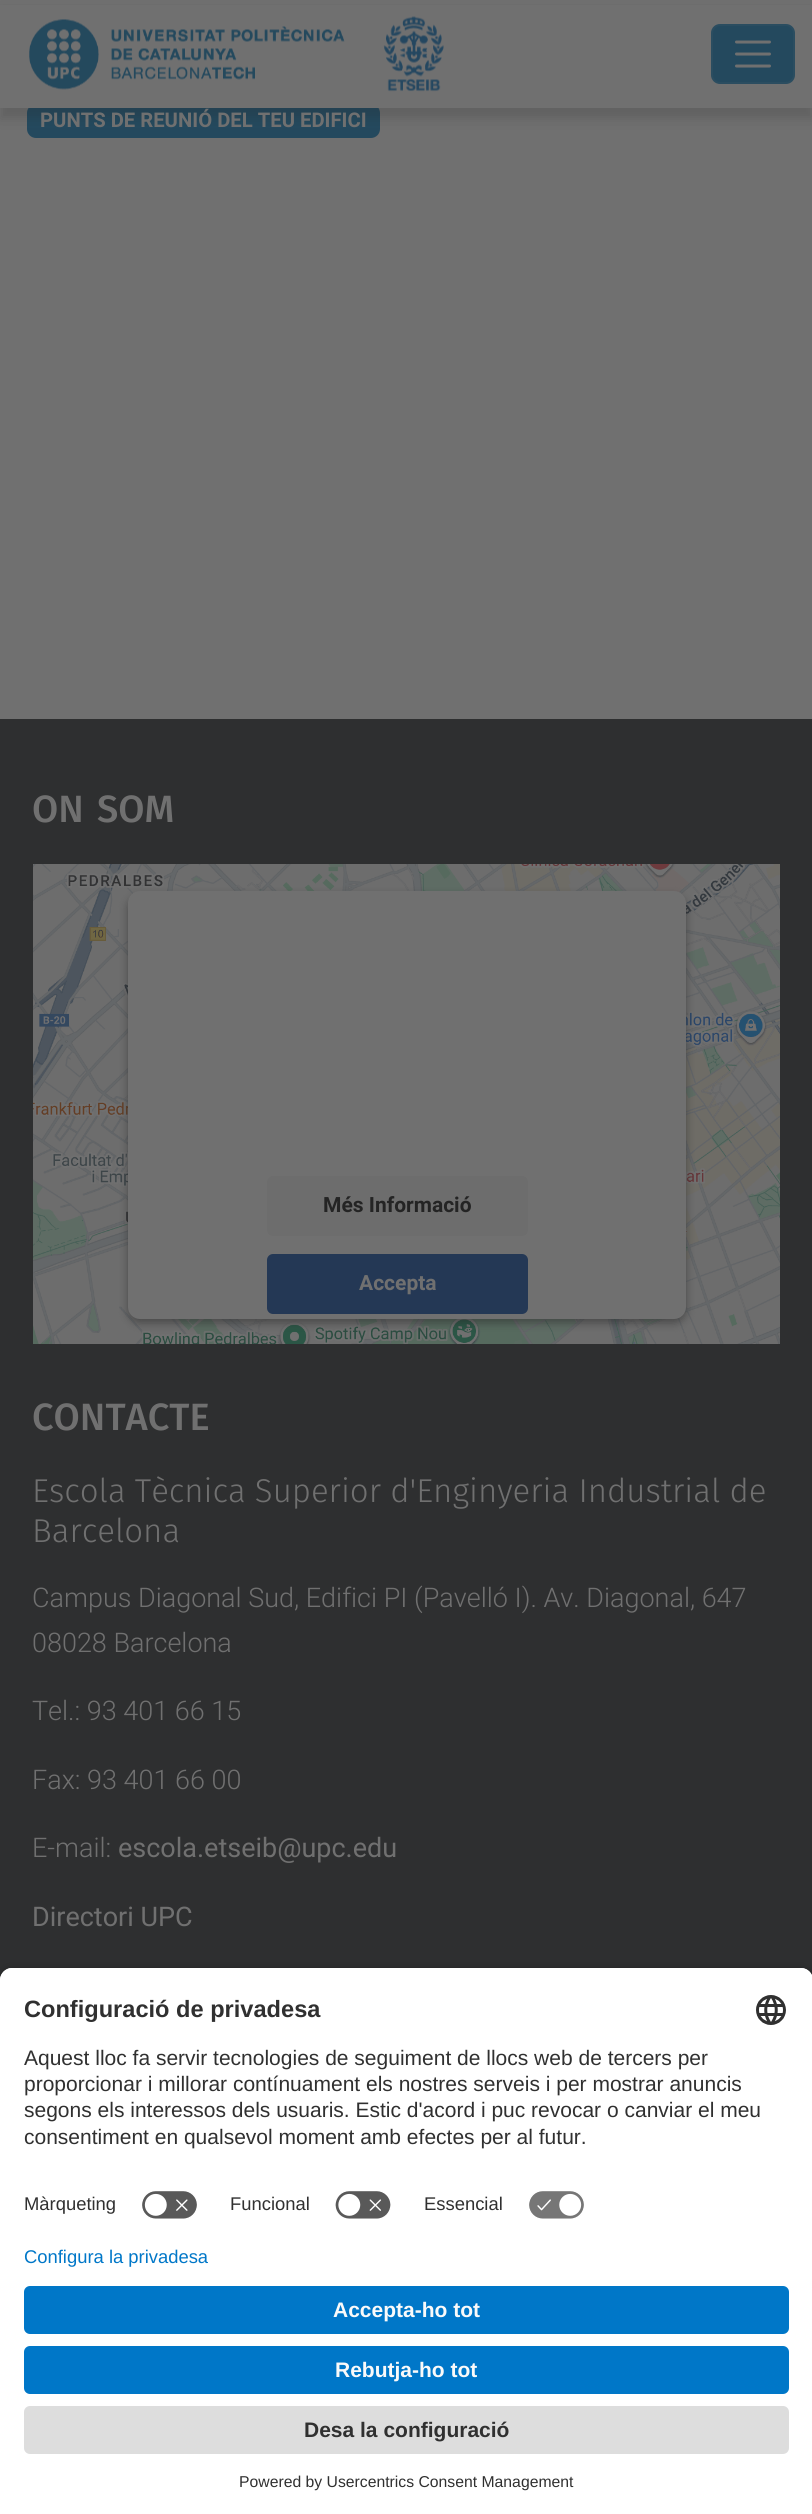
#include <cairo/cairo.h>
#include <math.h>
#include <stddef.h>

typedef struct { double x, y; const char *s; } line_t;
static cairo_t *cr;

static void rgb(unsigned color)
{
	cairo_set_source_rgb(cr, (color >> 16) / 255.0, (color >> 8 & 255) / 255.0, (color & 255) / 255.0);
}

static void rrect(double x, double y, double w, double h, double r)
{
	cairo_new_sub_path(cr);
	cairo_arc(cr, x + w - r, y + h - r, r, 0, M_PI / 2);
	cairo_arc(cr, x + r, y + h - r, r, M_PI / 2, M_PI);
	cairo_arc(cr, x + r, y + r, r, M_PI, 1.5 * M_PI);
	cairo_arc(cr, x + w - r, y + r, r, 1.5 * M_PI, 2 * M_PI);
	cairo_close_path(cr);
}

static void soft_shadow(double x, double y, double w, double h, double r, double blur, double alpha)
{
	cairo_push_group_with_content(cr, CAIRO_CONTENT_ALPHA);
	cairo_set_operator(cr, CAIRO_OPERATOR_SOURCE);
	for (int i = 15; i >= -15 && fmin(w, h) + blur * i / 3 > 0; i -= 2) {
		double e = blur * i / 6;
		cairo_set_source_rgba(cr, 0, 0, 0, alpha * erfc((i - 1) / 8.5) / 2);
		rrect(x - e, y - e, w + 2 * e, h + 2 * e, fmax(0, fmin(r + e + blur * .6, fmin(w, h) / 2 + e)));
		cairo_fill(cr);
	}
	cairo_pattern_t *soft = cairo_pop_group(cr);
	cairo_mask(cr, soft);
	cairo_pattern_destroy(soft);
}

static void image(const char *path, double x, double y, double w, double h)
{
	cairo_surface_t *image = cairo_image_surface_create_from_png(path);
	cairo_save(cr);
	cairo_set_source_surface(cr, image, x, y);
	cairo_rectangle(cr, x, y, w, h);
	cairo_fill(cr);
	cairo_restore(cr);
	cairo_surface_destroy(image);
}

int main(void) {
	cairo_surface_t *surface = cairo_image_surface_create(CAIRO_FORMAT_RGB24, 812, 2514);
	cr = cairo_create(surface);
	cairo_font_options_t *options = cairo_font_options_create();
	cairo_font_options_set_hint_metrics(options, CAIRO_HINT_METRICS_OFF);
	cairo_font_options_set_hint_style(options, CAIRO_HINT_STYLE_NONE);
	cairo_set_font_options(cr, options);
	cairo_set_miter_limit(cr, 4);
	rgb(0x707070);
	cairo_paint(cr);
	rgb(0x24495e);
	rrect(27, 104, 353, 34, 9);
	cairo_fill(cr);
	rgb(0x242424);
	soft_shadow(0, 11, 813, 108, 0, 6, 0.2);
	rgb(0x707070);
	cairo_rectangle(cr, 0, 5, 812, 103);
	cairo_fill(cr);
	image("img/1.png", 29, 19, 316, 71);
	image("img/2.png", 383, 16, 61, 76);
	rgb(0x24495e);
	rrect(711, 24, 84, 60, 9);
	cairo_fill(cr);
	rrect(712, 25, 82, 58, 8);
	cairo_set_source_rgba(cr, 0.439, 0.439, 0.439, 0.1);
	cairo_stroke(cr);
	cairo_new_path(cr);
	cairo_move_to(cr, 736.5, 42);
	cairo_line_to(cr, 769.5, 42);
	cairo_move_to(cr, 736.5, 54);
	cairo_line_to(cr, 769.5, 54);
	cairo_move_to(cr, 736.5, 66);
	cairo_line_to(cr, 769.5, 66);
	rgb(0x707070);
	cairo_set_line_width(cr, 3);
	cairo_set_line_cap(cr, CAIRO_LINE_CAP_ROUND);
	cairo_stroke(cr);
	rgb(0x2e2f30);
	cairo_rectangle(cr, 0, 719, 812, 1261);
	cairo_fill(cr);
	image("img/3.png", 33, 864, 747, 480);
	rgb(0x242424);
	soft_shadow(128, 896, 558, 427, 12, 4.5, 0.5);
	rgb(0x707070);
	rrect(128, 891, 558, 428, 12);
	cairo_fill(cr);
	rgb(0x6d6d6d);
	rrect(267, 1176, 261, 60, 6);
	cairo_fill(cr);
	rgb(0x243855);
	rrect(267, 1254, 261, 60, 6);
	cairo_fill(cr);
	rgb(0x000000);
	soft_shadow(0, 1973, 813, 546, 12, 5, 0.8);
	rgb(0xffffff);
	cairo_new_path(cr);
	cairo_move_to(cr, 12, 1968);
	cairo_line_to(cr, 801, 1968);
	cairo_curve_to(cr, 807.5, 1968, 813, 1973.5, 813, 1980);
	cairo_line_to(cr, 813, 2247);
	cairo_line_to(cr, 0, 2247);
	cairo_line_to(cr, 0, 1980);
	cairo_curve_to(cr, 0, 1973.5, 5.5, 1968, 12, 1968);
	cairo_close_path(cr);
	cairo_fill(cr);
	cairo_new_path(cr);
	cairo_move_to(cr, 12, 1968);
	cairo_line_to(cr, 801, 1968);
	cairo_curve_to(cr, 807.5, 1968, 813, 1973.5, 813, 1980);
	cairo_line_to(cr, 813, 2181);
	cairo_line_to(cr, 0, 2181);
	cairo_line_to(cr, 0, 1980);
	cairo_curve_to(cr, 0, 1973.5, 5.5, 1968, 12, 1968);
	cairo_close_path(cr);
	cairo_fill(cr);
	image("img/4.png", 756, 1995, 30, 30);
	image("img/5.png", 142, 2191, 55, 28);
	image("img/6.png", 335, 2191, 56, 28);
	image("img/7.png", 529, 2191, 55, 28);
	cairo_rectangle(cr, 0, 2247, 812, 267);
	cairo_fill(cr);
	rgb(0x0077c8);
	rrect(24, 2286, 765, 48, 6);
	cairo_fill(cr);
	rrect(24, 2346, 765, 48, 6);
	cairo_fill(cr);
	rgb(0xdddddd);
	rrect(24, 2406, 765, 48, 6);
	cairo_fill(cr);
	cairo_select_font_face(cr, "Roboto", CAIRO_FONT_SLANT_NORMAL, CAIRO_FONT_WEIGHT_BOLD);
	cairo_set_font_size(cr, 20.25);
	rgb(0x707070);
	cairo_move_to(cr, 40, 127);
	cairo_show_text(cr, "PUNTS DE REUNIÓ DEL TEU EDIFICI");
	cairo_select_font_face(cr, "Fira Sans Medium", CAIRO_FONT_SLANT_NORMAL, CAIRO_FONT_WEIGHT_NORMAL);
	cairo_set_font_size(cr, 38);
	cairo_move_to(cr, 32, 822);
	cairo_show_text(cr, "ON");
	cairo_move_to(cr, 97, 822);
	cairo_show_text(cr, "SOM");
	cairo_select_font_face(cr, "Roboto", CAIRO_FONT_SLANT_NORMAL, CAIRO_FONT_WEIGHT_BOLD);
	cairo_set_font_size(cr, 21);
	rgb(0x242424);
	cairo_move_to(cr, 323, 1212);
	cairo_show_text(cr, "Més Informació");
	rgb(0x707070);
	cairo_move_to(cr, 359, 1290);
	cairo_show_text(cr, "Accepta");
	cairo_select_font_face(cr, "Fira Sans Medium", CAIRO_FONT_SLANT_NORMAL, CAIRO_FONT_WEIGHT_NORMAL);
	cairo_set_font_size(cr, 38);
	cairo_move_to(cr, 32, 1430);
	cairo_show_text(cr, "CONTACTE");
	cairo_select_font_face(cr, "Fira Sans Light", CAIRO_FONT_SLANT_NORMAL, CAIRO_FONT_WEIGHT_NORMAL);
	cairo_set_font_size(cr, 33);
	cairo_move_to(cr, 32, 1502);
	cairo_show_text(cr, "Escola Tècnica Superior d'Enginyeria Industrial de");
	cairo_move_to(cr, 32, 1542);
	cairo_show_text(cr, "Barcelona");
	cairo_select_font_face(cr, "Roboto Light", CAIRO_FONT_SLANT_NORMAL, CAIRO_FONT_WEIGHT_NORMAL);
	cairo_set_font_size(cr, 27);
	{
		static const line_t items[] = {
			{32, 1607, "Campus Diagonal Sud, Edifici PI (Pavelló I). Av. Diagonal, 647"},
			{32, 1652, "08028 Barcelona"},
			{32, 1720, "Tel.: 93 401 66 15"},
			{32, 1789, "Fax: 93 401 66 00"},
			{32, 1857, "E-mail:"},
		};
		for (size_t i = 0; i < sizeof items / sizeof *items; i++) {
			cairo_move_to(cr, items[i].x, items[i].y);
			cairo_show_text(cr, items[i].s);
		}
	}
	cairo_select_font_face(cr, "Roboto", CAIRO_FONT_SLANT_NORMAL, CAIRO_FONT_WEIGHT_NORMAL);
	cairo_move_to(cr, 118, 1857);
	cairo_show_text(cr, "escola.etseib@upc.edu");
	cairo_move_to(cr, 32, 1926);
	cairo_show_text(cr, "Directori UPC");
	cairo_select_font_face(cr, "Liberation Sans", CAIRO_FONT_SLANT_NORMAL, CAIRO_FONT_WEIGHT_BOLD);
	cairo_set_font_size(cr, 23.6);
	rgb(0x303030);
	cairo_move_to(cr, 24, 2017);
	cairo_show_text(cr, "Configuració de privadesa");
	cairo_select_font_face(cr, "Liberation Sans", CAIRO_FONT_SLANT_NORMAL, CAIRO_FONT_WEIGHT_NORMAL);
	cairo_set_font_size(cr, 21);
	{
		static const line_t items[] = {
			{24, 2065, "Aquest lloc fa servir tecnologies de seguiment de llocs web de tercers per"},
			{24, 2091, "proporcionar i millorar contínuament els nostres serveis i per mostrar anuncis"},
			{24, 2117, "segons els interessos dels usuaris. Estic d'acord i puc revocar o canviar el meu"},
			{24, 2144, "consentiment en qualsevol moment amb efectes per al futur."},
		};
		for (size_t i = 0; i < sizeof items / sizeof *items; i++) {
			cairo_move_to(cr, items[i].x, items[i].y);
			cairo_show_text(cr, items[i].s);
		}
	}
	cairo_set_font_size(cr, 18.4);
	{
		static const line_t items[] = {
			{24, 2210, "Màrqueting"},
			{230, 2210, "Funcional"},
			{424, 2210, "Essencial"},
		};
		for (size_t i = 0; i < sizeof items / sizeof *items; i++) {
			cairo_move_to(cr, items[i].x, items[i].y);
			cairo_show_text(cr, items[i].s);
		}
	}
	rgb(0x0077c8);
	cairo_move_to(cr, 24, 2263);
	cairo_show_text(cr, "Configura la privadesa");
	cairo_select_font_face(cr, "Liberation Sans", CAIRO_FONT_SLANT_NORMAL, CAIRO_FONT_WEIGHT_BOLD);
	cairo_set_font_size(cr, 21);
	rgb(0xfafafa);
	cairo_move_to(cr, 333, 2317);
	cairo_show_text(cr, "Accepta-ho tot");
	cairo_move_to(cr, 335, 2377);
	cairo_show_text(cr, "Rebutja-ho tot");
	rgb(0x303030);
	cairo_move_to(cr, 304, 2437);
	cairo_show_text(cr, "Desa la configuració");
	cairo_select_font_face(cr, "Liberation Sans", CAIRO_FONT_SLANT_NORMAL, CAIRO_FONT_WEIGHT_NORMAL);
	cairo_set_font_size(cr, 15.75);
	cairo_move_to(cr, 239, 2487);
	cairo_show_text(cr, "Powered by Usercentrics Consent Management");
	cairo_surface_write_to_png(surface, "page.png");
	cairo_font_options_destroy(options);
	cairo_destroy(cr);
	cairo_surface_destroy(surface);
	return 0;
}
